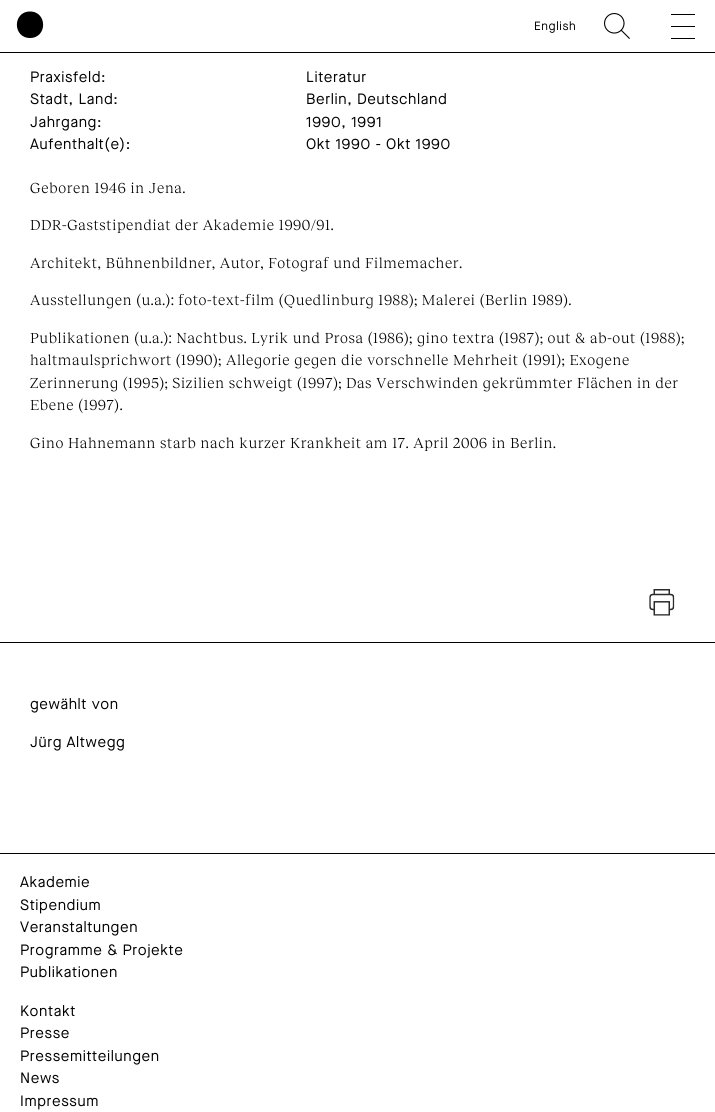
#include <cairo/cairo.h>
#include <math.h>
#include <stddef.h>

typedef struct { double x, y; const char *s; } line_t;
typedef struct { double x, y, w, h; unsigned color; } box_t;
static cairo_t *cr;

static void rgb(unsigned color)
{
	cairo_set_source_rgb(cr, (color >> 16) / 255.0, (color >> 8 & 255) / 255.0, (color & 255) / 255.0);
}

static void tracked(double x, double y, const char *s, double letter, double word)
{
	cairo_move_to(cr, x, y);
	while (*s) {
		char ch[5] = {0};
		int n = 0;
		do ch[n++] = *s++; while ((*s & 0xC0) == 0x80);
		cairo_show_text(cr, ch);
		cairo_rel_move_to(cr, letter + word * (*ch == ' '), 0);
	}
}

static void image(const char *path, double x, double y, double w, double h)
{
	cairo_surface_t *image = cairo_image_surface_create_from_png(path);
	cairo_save(cr);
	cairo_set_source_surface(cr, image, x, y);
	cairo_rectangle(cr, x, y, w, h);
	cairo_fill(cr);
	cairo_restore(cr);
	cairo_surface_destroy(image);
}

int main(void) {
	cairo_surface_t *surface = cairo_image_surface_create(CAIRO_FORMAT_RGB24, 715, 1112);
	cr = cairo_create(surface);
	cairo_font_options_t *options = cairo_font_options_create();
	cairo_font_options_set_hint_metrics(options, CAIRO_HINT_METRICS_OFF);
	cairo_font_options_set_hint_style(options, CAIRO_HINT_STYLE_NONE);
	cairo_set_font_options(cr, options);
	cairo_set_miter_limit(cr, 4);
	rgb(0xffffff);
	cairo_paint(cr);
	rgb(0x000000);
	cairo_rectangle(cr, 0, 52, 715, 1);
	cairo_fill(cr);
	cairo_new_path(cr);
	cairo_move_to(cr, 30, 38);
	cairo_curve_to(cr, 47.5, 38, 47.5, 11.5, 30, 11.5);
	cairo_curve_to(cr, 12.5, 11.5, 12.5, 38, 30, 38);
	cairo_close_path(cr);
	cairo_fill(cr);
	image("img/1.png", 604, 13, 26, 26);
	{
		static const box_t items[] = {
			{671, 14, 24, 1, 0x000000},
			{671, 26, 24, 1, 0x000000},
			{671, 38, 24, 1, 0x000000},
		};
		for (size_t i = 0; i < sizeof items / sizeof *items; i++) {
			rgb(items[i].color);
			cairo_rectangle(cr, items[i].x, items[i].y, items[i].w, items[i].h);
			cairo_fill(cr);
		}
	}
	image("img/2.png", 649, 589, 26, 27);
	cairo_rectangle(cr, 0, 642, 715, 1);
	cairo_fill(cr);
	cairo_rectangle(cr, 0, 853, 715, 1);
	cairo_fill(cr);
	cairo_select_font_face(cr, "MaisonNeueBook", CAIRO_FONT_SLANT_NORMAL, CAIRO_FONT_WEIGHT_NORMAL);
	cairo_set_font_size(cr, 12);
	tracked(534, 30, "English", 0.6, 0);
	cairo_set_font_size(cr, 15);
	{
		static const line_t items[] = {
			{30, 82, "Praxisfeld:"},
			{306, 82, "Literatur"},
			{30, 104, "Stadt, Land:"},
			{306, 104, "Berlin, Deutschland"},
			{30, 127, "Jahrgang:"},
			{306, 127, "1990, 1991"},
			{30, 149, "Aufenthalt(e):"},
			{306, 149, "Okt 1990 - Okt 1990"},
		};
		for (size_t i = 0; i < sizeof items / sizeof *items; i++) {
			tracked(items[i].x, items[i].y, items[i].s, 0.6, 0);
		}
	}
	cairo_select_font_face(cr, "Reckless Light", CAIRO_FONT_SLANT_NORMAL, CAIRO_FONT_WEIGHT_NORMAL);
	{
		static const line_t items[] = {
			{30, 193, "Geboren 1946 in Jena."},
			{30, 230, "DDR-Gaststipendiat der Akademie 1990/91."},
			{30, 268, "Architekt, Bühnenbildner, Autor, Fotograf und Filmemacher."},
			{30, 305, "Ausstellungen (u.a.): foto-text-film (Quedlinburg 1988); Malerei (Berlin 1989)."},
			{30, 343, "Publikationen (u.a.): Nachtbus. Lyrik und Prosa (1986); gino textra (1987); out & ab-out (1988);"},
			{30, 365, "haltmaulsprichwort (1990); Allegorie gegen die vorschnelle Mehrheit (1991); Exogene"},
			{30, 388, "Zerinnerung (1995); Sizilien schweigt (1997); Das Verschwinden gekrümmter Flächen in der"},
			{30, 410, "Ebene (1997)."},
			{30, 448, "Gino Hahnemann starb nach kurzer Krankheit am 17. April 2006 in Berlin."},
		};
		for (size_t i = 0; i < sizeof items / sizeof *items; i++) {
			tracked(items[i].x, items[i].y, items[i].s, 0.6, 0);
		}
	}
	cairo_select_font_face(cr, "MaisonNeueBook", CAIRO_FONT_SLANT_NORMAL, CAIRO_FONT_WEIGHT_NORMAL);
	{
		static const line_t items[] = {
			{30, 709, "gewählt von"},
			{30, 747, "Jürg Altwegg"},
			{20, 887, "Akademie"},
			{20, 910, "Stipendium"},
			{20, 932, "Veranstaltungen"},
			{20, 955, "Programme & Projekte"},
			{20, 977, "Publikationen"},
			{20, 1016, "Kontakt"},
			{20, 1038, "Presse"},
			{20, 1061, "Pressemitteilungen"},
			{20, 1083, "News"},
			{20, 1106, "Impressum"},
		};
		for (size_t i = 0; i < sizeof items / sizeof *items; i++) {
			tracked(items[i].x, items[i].y, items[i].s, 0.6, 0);
		}
	}
	cairo_surface_write_to_png(surface, "page.png");
	cairo_font_options_destroy(options);
	cairo_destroy(cr);
	cairo_surface_destroy(surface);
	return 0;
}
